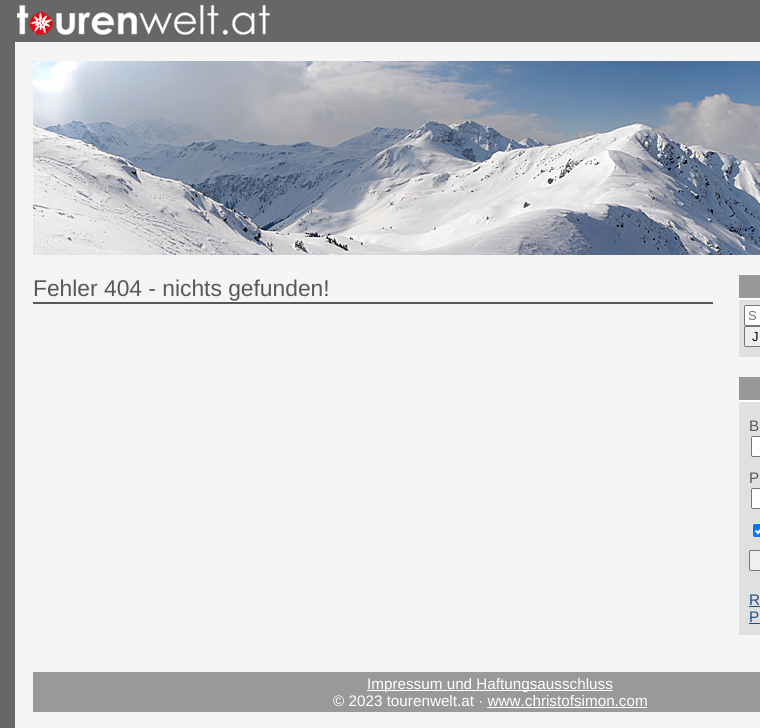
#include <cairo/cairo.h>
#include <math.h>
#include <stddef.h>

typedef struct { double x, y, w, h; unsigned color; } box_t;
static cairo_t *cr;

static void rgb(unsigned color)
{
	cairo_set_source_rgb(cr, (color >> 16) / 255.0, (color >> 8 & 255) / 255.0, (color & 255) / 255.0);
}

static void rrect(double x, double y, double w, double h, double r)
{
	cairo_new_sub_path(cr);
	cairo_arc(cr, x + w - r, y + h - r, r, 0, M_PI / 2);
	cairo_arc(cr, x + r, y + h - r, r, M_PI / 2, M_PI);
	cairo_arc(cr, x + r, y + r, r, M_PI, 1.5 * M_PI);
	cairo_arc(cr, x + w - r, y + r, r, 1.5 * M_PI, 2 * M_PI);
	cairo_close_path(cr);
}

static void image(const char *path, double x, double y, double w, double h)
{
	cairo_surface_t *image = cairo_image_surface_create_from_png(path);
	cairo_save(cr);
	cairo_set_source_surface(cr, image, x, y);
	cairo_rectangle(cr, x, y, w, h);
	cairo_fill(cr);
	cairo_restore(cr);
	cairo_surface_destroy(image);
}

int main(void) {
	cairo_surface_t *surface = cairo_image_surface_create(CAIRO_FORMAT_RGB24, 760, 728);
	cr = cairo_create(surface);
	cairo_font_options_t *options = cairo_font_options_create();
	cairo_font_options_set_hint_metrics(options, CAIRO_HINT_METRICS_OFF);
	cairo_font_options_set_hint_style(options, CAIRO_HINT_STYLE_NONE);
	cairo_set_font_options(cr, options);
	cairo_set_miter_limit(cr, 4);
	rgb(0x676767);
	cairo_paint(cr);
	image("img/1.png", 17, 5, 253, 30);
	rgb(0xf5f5f5);
	cairo_rectangle(cr, 15, 42, 745, 686);
	cairo_fill(cr);
	image("img/2.png", 33, 61, 727, 194);
	{
		static const box_t items[] = {
			{33, 302, 680, 2, 0x585858},
			{739, 300, 21, 57, 0xe0e0e0},
			{739, 275, 21, 23, 0x979898},
			{739, 298, 21, 2, 0xffffff},
		};
		for (size_t i = 0; i < sizeof items / sizeof *items; i++) {
			rgb(items[i].color);
			cairo_rectangle(cr, items[i].x, items[i].y, items[i].w, items[i].h);
			cairo_fill(cr);
		}
	}
	rrect(744.5, 305.5, 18, 20, 1.5);
	cairo_fill_preserve(cr);
	rgb(0x767676);
	cairo_set_line_width(cr, 1);
	cairo_stroke(cr);
	rgb(0xefefef);
	rrect(744.5, 326.5, 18, 20, 1.5);
	cairo_fill_preserve(cr);
	rgb(0x767676);
	cairo_stroke(cr);
	{
		static const box_t items[] = {
			{739, 402, 21, 233, 0xe0e0e0},
			{739, 377, 21, 23, 0x979898},
			{739, 400, 21, 2, 0xffffff},
		};
		for (size_t i = 0; i < sizeof items / sizeof *items; i++) {
			rgb(items[i].color);
			cairo_rectangle(cr, items[i].x, items[i].y, items[i].w, items[i].h);
			cairo_fill(cr);
		}
	}
	rrect(751.5, 436.5, 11, 20, 1.5);
	cairo_fill_preserve(cr);
	rgb(0x767676);
	cairo_stroke(cr);
	rgb(0xffffff);
	rrect(751.5, 488.5, 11, 20, 1.5);
	cairo_fill_preserve(cr);
	rgb(0x767676);
	cairo_stroke(cr);
	rgb(0x0075ff);
	rrect(753, 524, 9, 13, 2);
	cairo_fill(cr);
	cairo_new_path(cr);
	cairo_move_to(cr, 755.5, 530.5);
	cairo_line_to(cr, 758, 533);
	cairo_line_to(cr, 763.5, 526.5);
	rgb(0xffffff);
	cairo_set_line_width(cr, 2.1);
	cairo_stroke(cr);
	rgb(0xefefef);
	rrect(749.5, 550.5, 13, 20, 1.5);
	cairo_fill_preserve(cr);
	rgb(0x767676);
	cairo_set_line_width(cr, 1);
	cairo_stroke(cr);
	{
		static const box_t items[] = {
			{749, 606, 11, 1, 0x1c4e89},
			{749, 623, 11, 1, 0x1c4e89},
			{33, 672, 727, 40, 0x999999},
			{367, 690, 246, 1, 0xffffff},
			{487, 707, 160, 1, 0xffffff},
		};
		for (size_t i = 0; i < sizeof items / sizeof *items; i++) {
			rgb(items[i].color);
			cairo_rectangle(cr, items[i].x, items[i].y, items[i].w, items[i].h);
			cairo_fill(cr);
		}
	}
	cairo_select_font_face(cr, "Liberation Sans", CAIRO_FONT_SLANT_NORMAL, CAIRO_FONT_WEIGHT_NORMAL);
	cairo_set_font_size(cr, 22.8);
	rgb(0x585858);
	cairo_move_to(cr, 33, 296);
	cairo_show_text(cr, "Fehler 404 - nichts gefunden!");
	cairo_set_font_size(cr, 13);
	rgb(0x757575);
	cairo_move_to(cr, 748, 320);
	cairo_show_text(cr, "S");
	rgb(0x000000);
	cairo_move_to(cr, 752, 341);
	cairo_show_text(cr, "J");
	cairo_set_font_size(cr, 15.25);
	rgb(0x585858);
	cairo_move_to(cr, 749, 431);
	cairo_show_text(cr, "B");
	cairo_move_to(cr, 749, 483);
	cairo_show_text(cr, "P");
	rgb(0x1c4e89);
	cairo_move_to(cr, 749, 605);
	cairo_show_text(cr, "R");
	cairo_move_to(cr, 749, 622);
	cairo_show_text(cr, "P");
	rgb(0xffffff);
	cairo_move_to(cr, 367, 689);
	cairo_show_text(cr, "Impressum und Haftungsausschluss");
	cairo_move_to(cr, 333, 706);
	cairo_show_text(cr, "© 2023 tourenwelt.at · www.christofsimon.com");
	cairo_surface_write_to_png(surface, "page.png");
	cairo_font_options_destroy(options);
	cairo_destroy(cr);
	cairo_surface_destroy(surface);
	return 0;
}
